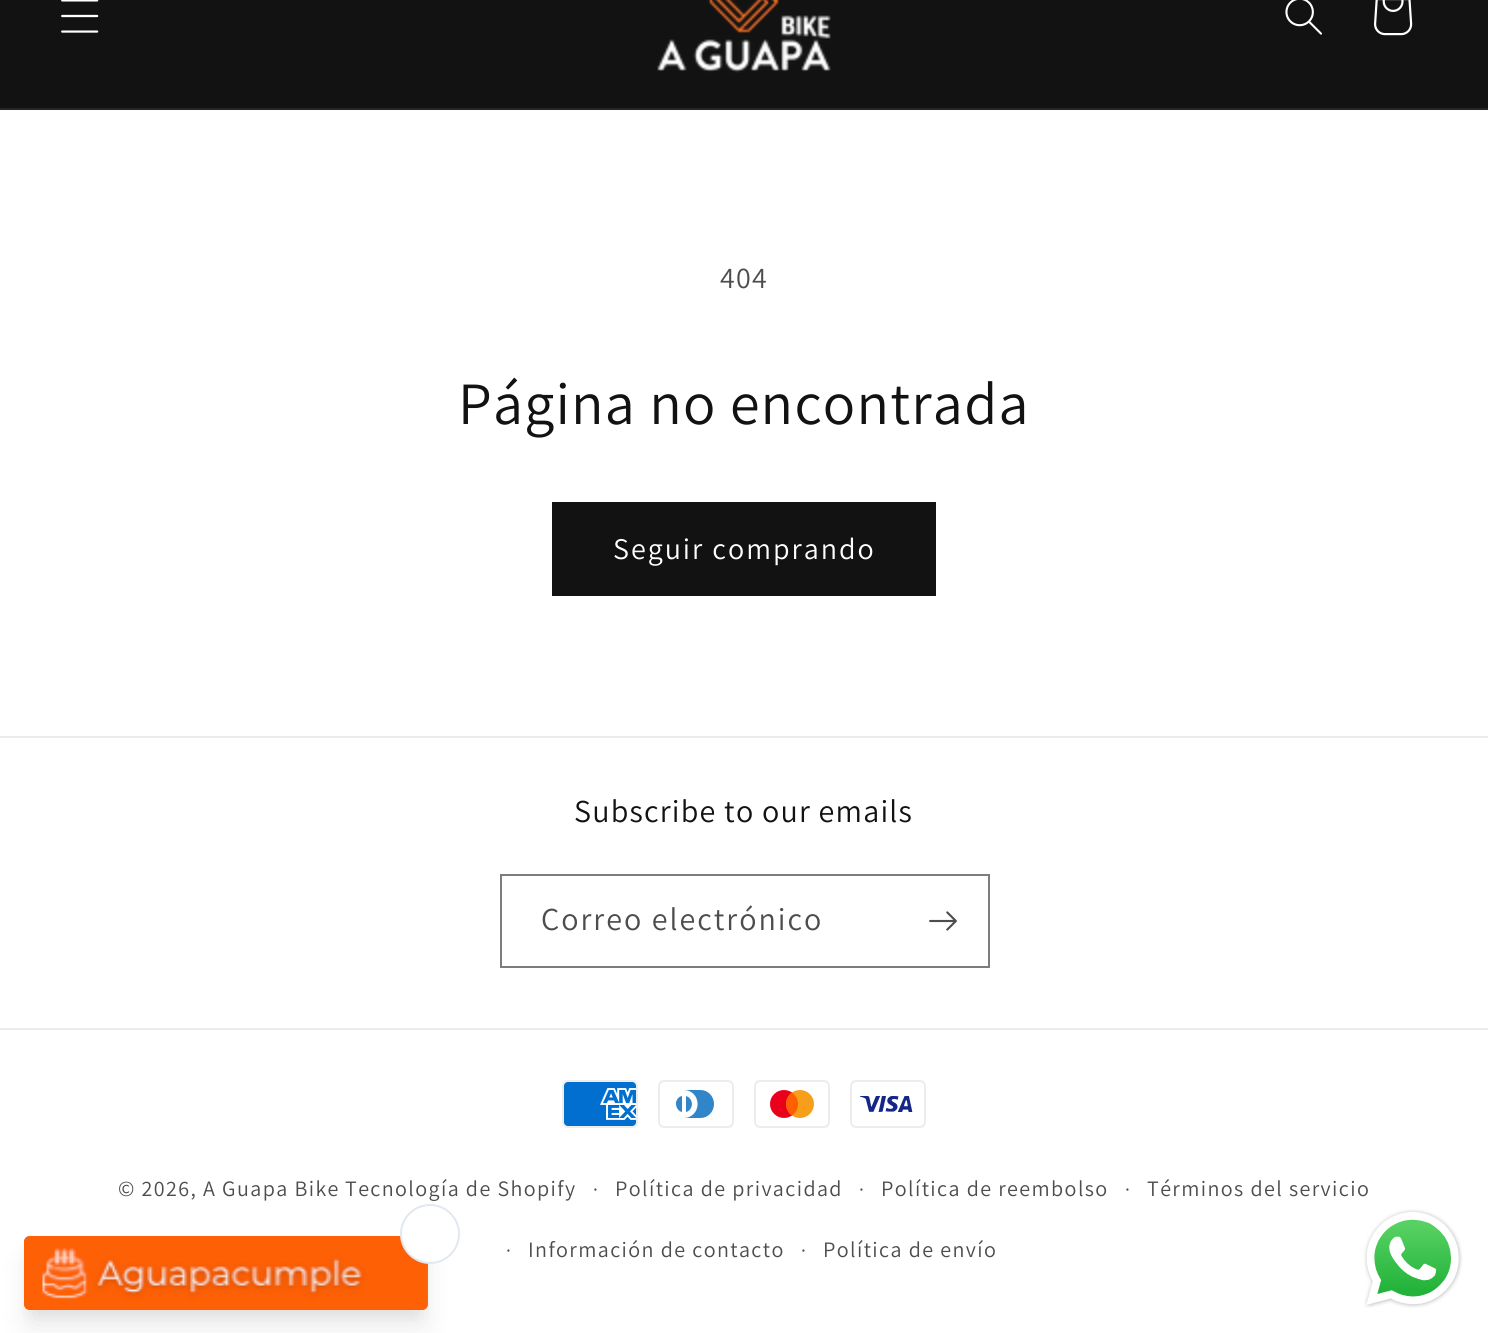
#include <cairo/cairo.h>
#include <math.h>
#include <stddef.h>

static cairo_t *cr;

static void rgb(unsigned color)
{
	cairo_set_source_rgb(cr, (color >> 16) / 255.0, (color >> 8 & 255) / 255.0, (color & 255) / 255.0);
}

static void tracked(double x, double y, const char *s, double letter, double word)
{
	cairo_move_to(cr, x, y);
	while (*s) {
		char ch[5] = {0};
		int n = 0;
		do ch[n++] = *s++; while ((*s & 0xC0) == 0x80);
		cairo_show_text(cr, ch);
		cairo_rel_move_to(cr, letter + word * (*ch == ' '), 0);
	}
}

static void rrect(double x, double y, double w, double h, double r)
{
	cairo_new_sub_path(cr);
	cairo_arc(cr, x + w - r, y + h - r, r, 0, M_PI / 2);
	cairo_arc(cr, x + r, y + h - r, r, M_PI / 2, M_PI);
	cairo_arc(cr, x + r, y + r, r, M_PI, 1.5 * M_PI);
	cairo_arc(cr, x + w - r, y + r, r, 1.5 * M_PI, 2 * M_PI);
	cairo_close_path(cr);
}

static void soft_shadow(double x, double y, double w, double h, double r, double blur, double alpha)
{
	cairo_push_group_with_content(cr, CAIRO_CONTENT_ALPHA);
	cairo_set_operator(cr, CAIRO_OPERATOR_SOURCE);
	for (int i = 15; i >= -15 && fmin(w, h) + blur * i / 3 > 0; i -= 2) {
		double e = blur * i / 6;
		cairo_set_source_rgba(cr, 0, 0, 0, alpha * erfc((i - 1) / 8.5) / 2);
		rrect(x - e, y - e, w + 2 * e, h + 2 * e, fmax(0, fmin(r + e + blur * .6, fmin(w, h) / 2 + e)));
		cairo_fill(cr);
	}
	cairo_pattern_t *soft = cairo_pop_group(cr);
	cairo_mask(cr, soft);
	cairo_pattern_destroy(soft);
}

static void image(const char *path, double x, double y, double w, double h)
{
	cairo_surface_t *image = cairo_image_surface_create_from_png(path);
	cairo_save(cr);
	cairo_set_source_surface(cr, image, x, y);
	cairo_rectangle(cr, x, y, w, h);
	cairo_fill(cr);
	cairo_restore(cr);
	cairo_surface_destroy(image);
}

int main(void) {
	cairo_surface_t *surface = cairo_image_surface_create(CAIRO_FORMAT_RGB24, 1488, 1333);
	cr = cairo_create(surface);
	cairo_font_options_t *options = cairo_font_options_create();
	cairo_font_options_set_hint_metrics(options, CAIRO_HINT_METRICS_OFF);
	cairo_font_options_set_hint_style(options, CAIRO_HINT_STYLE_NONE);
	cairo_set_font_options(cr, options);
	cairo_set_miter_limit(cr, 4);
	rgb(0xffffff);
	cairo_paint(cr);
	rgb(0x121212);
	cairo_rectangle(cr, 0, 0, 1488, 108);
	cairo_fill(cr);
	rgb(0x252525);
	cairo_rectangle(cr, 0, 108, 1488, 2);
	cairo_fill(cr);
	image("img/1.png", 61, 0, 38, 33);
	image("img/2.png", 657, 0, 174, 73);
	image("img/3.png", 1285, 0, 37, 35);
	image("img/4.png", 1374, 0, 39, 36);
	rgb(0x121212);
	cairo_rectangle(cr, 552, 502, 384, 94);
	cairo_fill(cr);
	rgb(0xececec);
	cairo_rectangle(cr, 0, 736, 1488, 2);
	cairo_fill(cr);
	cairo_rectangle(cr, 501, 875, 488, 92);
	rgb(0x7d7d7d);
	cairo_stroke(cr);
	image("img/5.png", 929, 911, 28, 20);
	rgb(0xececec);
	cairo_rectangle(cr, 0, 1028, 1488, 2);
	cairo_fill(cr);
	image("img/6.png", 562, 1080, 76, 48);
	image("img/7.png", 658, 1080, 76, 48);
	image("img/8.png", 754, 1080, 76, 48);
	image("img/9.png", 850, 1080, 76, 48);
	rgb(0x000000);
	soft_shadow(28, 1248, 396, 66, 2, 6, 0.05);
	soft_shadow(30, 1262, 392, 62, 0, 15, 0.1);
	rgb(0xe67e22);
	rrect(24, 1236, 404, 74, 6);
	cairo_fill(cr);
	image("img/10.png", 24, 1236, 404, 74);
	rgb(0xffffff);
	cairo_arc(cr, 430, 1234, 29, 0, 2 * M_PI);
	cairo_fill_preserve(cr);
	rgb(0xe2e8f0);
	cairo_stroke(cr);
	image("img/11.png", 1364, 1209, 99, 99);
	cairo_select_font_face(cr, "Assistant", CAIRO_FONT_SLANT_NORMAL, CAIRO_FONT_WEIGHT_NORMAL);
	cairo_set_font_size(cr, 30);
	rgb(0x4d4d4d);
	tracked(720, 288, "404", 1.2, 0);
	cairo_set_font_size(cr, 60);
	rgb(0x121212);
	tracked(458, 424, "Página no encontrada", 1.2, 0);
	cairo_set_font_size(cr, 30);
	rgb(0xffffff);
	tracked(613, 559, "Seguir comprando", 2, 0);
	cairo_set_font_size(cr, 32);
	rgb(0x121212);
	tracked(574, 822, "Subscribe to our emails", 1.2, 0);
	rgb(0x4d4d4d);
	tracked(541, 930, "Correo electrónico", 2, 0);
	cairo_set_font_size(cr, 22);
	tracked(118, 1196, "© 2026, A Guapa Bike", 1.4, 0);
	tracked(345, 1196, "Tecnología de Shopify", 1.4, 0);
	cairo_set_font_size(cr, 20);
	tracked(593, 1196, "·", 1.4, 0);
	cairo_set_font_size(cr, 22);
	tracked(615, 1196, "Política de privacidad", 1.4, 0);
	cairo_set_font_size(cr, 20);
	tracked(859, 1196, "·", 1.4, 0);
	cairo_set_font_size(cr, 22);
	tracked(881, 1196, "Política de reembolso", 1.4, 0);
	cairo_set_font_size(cr, 20);
	tracked(1125, 1196, "·", 1.4, 0);
	cairo_set_font_size(cr, 22);
	tracked(1147, 1196, "Términos del servicio", 1.4, 0);
	cairo_set_font_size(cr, 20);
	tracked(506, 1257, "·", 1.4, 0);
	cairo_set_font_size(cr, 22);
	tracked(528, 1257, "Información de contacto", 1.4, 0);
	cairo_set_font_size(cr, 20);
	tracked(801, 1257, "·", 1.4, 0);
	cairo_set_font_size(cr, 22);
	tracked(823, 1257, "Política de envío", 1.4, 0);
	cairo_surface_write_to_png(surface, "page.png");
	cairo_font_options_destroy(options);
	cairo_destroy(cr);
	cairo_surface_destroy(surface);
	return 0;
}
